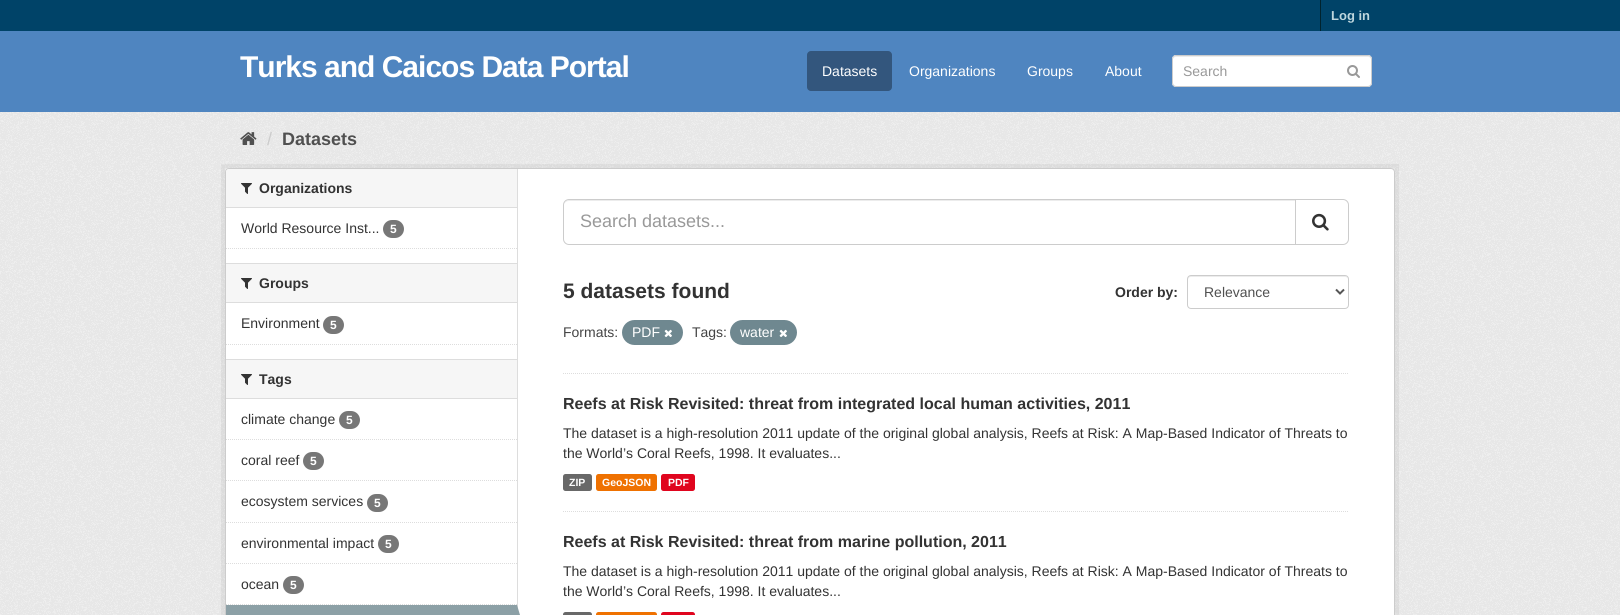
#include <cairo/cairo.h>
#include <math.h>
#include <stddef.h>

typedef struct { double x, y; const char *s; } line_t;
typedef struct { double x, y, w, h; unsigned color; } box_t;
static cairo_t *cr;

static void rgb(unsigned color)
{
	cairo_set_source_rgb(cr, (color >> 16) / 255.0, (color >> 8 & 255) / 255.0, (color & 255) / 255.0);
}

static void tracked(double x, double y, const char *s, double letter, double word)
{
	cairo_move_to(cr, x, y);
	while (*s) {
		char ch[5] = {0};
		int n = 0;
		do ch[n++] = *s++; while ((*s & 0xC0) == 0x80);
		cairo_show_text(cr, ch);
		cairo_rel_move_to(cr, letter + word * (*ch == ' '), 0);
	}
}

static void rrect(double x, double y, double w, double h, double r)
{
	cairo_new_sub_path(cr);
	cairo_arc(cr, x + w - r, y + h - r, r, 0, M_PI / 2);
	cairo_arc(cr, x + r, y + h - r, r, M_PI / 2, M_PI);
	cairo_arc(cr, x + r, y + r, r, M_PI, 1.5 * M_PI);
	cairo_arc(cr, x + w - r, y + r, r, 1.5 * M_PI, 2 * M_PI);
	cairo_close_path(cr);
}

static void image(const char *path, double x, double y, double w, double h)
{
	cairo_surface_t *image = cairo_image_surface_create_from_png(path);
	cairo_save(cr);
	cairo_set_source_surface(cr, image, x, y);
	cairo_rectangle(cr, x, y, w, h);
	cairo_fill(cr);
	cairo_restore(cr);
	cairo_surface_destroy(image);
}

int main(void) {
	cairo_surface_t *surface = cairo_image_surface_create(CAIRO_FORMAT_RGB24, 1620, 615);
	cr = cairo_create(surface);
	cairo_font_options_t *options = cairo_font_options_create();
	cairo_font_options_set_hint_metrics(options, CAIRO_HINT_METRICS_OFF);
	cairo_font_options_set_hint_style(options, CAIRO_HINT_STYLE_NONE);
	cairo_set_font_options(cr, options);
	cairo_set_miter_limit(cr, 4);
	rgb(0x004368);
	cairo_paint(cr);
	rgb(0x00232e);
	cairo_rectangle(cr, 1320, 0, 1, 31);
	cairo_fill(cr);
	rgb(0x4f85c0);
	cairo_rectangle(cr, 0, 31, 1620, 81);
	cairo_fill(cr);
	rgb(0x33567d);
	rrect(807, 51, 85, 40, 4);
	cairo_fill(cr);
	rgb(0xffffff);
	rrect(1172, 55, 200, 32, 4);
	cairo_fill(cr);
	rgb(0xececec);
	cairo_new_path(cr);
	cairo_move_to(cr, 1176, 57);
	cairo_line_to(cr, 1368, 57);
	cairo_curve_to(cr, 1370, 57, 1371, 58, 1371, 60);
	cairo_curve_to(cr, 1371, 58, 1370, 56, 1368, 56);
	cairo_line_to(cr, 1176, 56);
	cairo_curve_to(cr, 1174, 56, 1173, 58, 1173, 60);
	cairo_curve_to(cr, 1173, 58, 1174, 57, 1176, 57);
	cairo_close_path(cr);
	cairo_fill(cr);
	rrect(1172.5, 55.5, 199, 31, 3.5);
	rgb(0xcccccc);
	cairo_set_line_width(cr, 1);
	cairo_stroke(cr);
	image("img/1.png", 1347, 65, 13, 13);
	rgb(0xeeeeee);
	cairo_rectangle(cr, 0, 112, 1620, 503);
	cairo_fill(cr);
	image("img/2.png", 0, 112, 1620, 503);
	image("img/3.png", 240, 132, 17, 13);
	cairo_rectangle(cr, 223, 166, 1174, 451);
	cairo_set_source_rgba(cr, 0, 0, 0, 0.05);
	cairo_set_line_width(cr, 4);
	cairo_stroke(cr);
	rgb(0xffffff);
	rrect(225.5, 168.5, 1169, 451, 3.5);
	cairo_fill_preserve(cr);
	rgb(0xcccccc);
	cairo_set_line_width(cr, 1);
	cairo_stroke(cr);
	rgb(0xf6f6f6);
	cairo_new_path(cr);
	cairo_move_to(cr, 229, 169);
	cairo_line_to(cr, 517, 169);
	cairo_line_to(cr, 517, 208);
	cairo_line_to(cr, 226, 208);
	cairo_line_to(cr, 226, 172);
	cairo_curve_to(cr, 226, 170.5, 227.5, 169, 229, 169);
	cairo_close_path(cr);
	cairo_fill(cr);
	rgb(0xdddddd);
	cairo_rectangle(cr, 226, 207, 291, 1);
	cairo_fill(cr);
	image("img/4.png", 241, 183, 11, 11);
	rgb(0x777777);
	rrect(383, 220, 21, 18, 9);
	cairo_fill(cr);
	cairo_new_path(cr);
	cairo_move_to(cr, 226, 248.5);
	cairo_line_to(cr, 517, 248.5);
	rgb(0xdddddd);
	cairo_set_dash(cr, (double[]){1, 1}, 2, 0);
	cairo_stroke(cr);
	{
		static const box_t items[] = {
			{226, 264, 291, 38, 0xf6f6f6},
			{226, 263, 291, 1, 0xdddddd},
			{226, 302, 291, 1, 0xdddddd},
		};
		for (size_t i = 0; i < sizeof items / sizeof *items; i++) {
			rgb(items[i].color);
			cairo_rectangle(cr, items[i].x, items[i].y, items[i].w, items[i].h);
			cairo_fill(cr);
		}
	}
	image("img/4.png", 241, 278, 11, 11);
	rgb(0x777777);
	rrect(323, 316, 21, 18, 9);
	cairo_fill(cr);
	cairo_new_path(cr);
	cairo_move_to(cr, 226, 344.5);
	cairo_line_to(cr, 517, 344.5);
	rgb(0xdddddd);
	cairo_stroke(cr);
	{
		static const box_t items[] = {
			{226, 360, 291, 38, 0xf6f6f6},
			{226, 359, 291, 1, 0xdddddd},
			{226, 398, 291, 1, 0xdddddd},
		};
		for (size_t i = 0; i < sizeof items / sizeof *items; i++) {
			rgb(items[i].color);
			cairo_rectangle(cr, items[i].x, items[i].y, items[i].w, items[i].h);
			cairo_fill(cr);
		}
	}
	image("img/4.png", 241, 374, 11, 11);
	cairo_new_path(cr);
	cairo_move_to(cr, 226, 439.5);
	cairo_line_to(cr, 517, 439.5);
	cairo_stroke(cr);
	rgb(0x777777);
	rrect(339, 411, 21, 18, 9);
	cairo_fill(cr);
	cairo_new_path(cr);
	cairo_move_to(cr, 226, 480.5);
	cairo_line_to(cr, 517, 480.5);
	rgb(0xdddddd);
	cairo_stroke(cr);
	rgb(0x777777);
	rrect(303, 452, 21, 18, 9);
	cairo_fill(cr);
	cairo_new_path(cr);
	cairo_move_to(cr, 226, 522.5);
	cairo_line_to(cr, 517, 522.5);
	rgb(0xdddddd);
	cairo_stroke(cr);
	rgb(0x777777);
	rrect(367, 494, 21, 18, 9);
	cairo_fill(cr);
	cairo_new_path(cr);
	cairo_move_to(cr, 226, 563.5);
	cairo_line_to(cr, 517, 563.5);
	rgb(0xdddddd);
	cairo_stroke(cr);
	rgb(0x777777);
	rrect(378, 535, 21, 18, 9);
	cairo_fill(cr);
	cairo_new_path(cr);
	cairo_move_to(cr, 226, 604.5);
	cairo_line_to(cr, 517, 604.5);
	rgb(0xdddddd);
	cairo_stroke(cr);
	rgb(0x777777);
	rrect(283, 576, 21, 18, 9);
	cairo_fill(cr);
	rgb(0x8ca0a6);
	cairo_rectangle(cr, 226, 605, 291, 10);
	cairo_fill(cr);
	rgb(0xdddddd);
	cairo_rectangle(cr, 517, 169, 1, 446);
	cairo_fill(cr);
	rgb(0x8ca0a6);
	cairo_new_path(cr);
	cairo_move_to(cr, 517, 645);
	cairo_line_to(cr, 517, 605);
	cairo_line_to(cr, 523, 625);
	cairo_close_path(cr);
	cairo_fill(cr);
	cairo_new_path(cr);
	cairo_move_to(cr, 563, 373.5);
	cairo_line_to(cr, 1349, 373.5);
	rgb(0xdddddd);
	cairo_stroke(cr);
	rgb(0xececec);
	cairo_new_path(cr);
	cairo_move_to(cr, 569, 201);
	cairo_line_to(cr, 1295, 201);
	cairo_line_to(cr, 1295, 200);
	cairo_line_to(cr, 569, 200);
	cairo_curve_to(cr, 566, 200, 564, 203, 564, 206);
	cairo_curve_to(cr, 564, 203, 566, 201, 569, 201);
	cairo_close_path(cr);
	cairo_fill(cr);
	cairo_new_path(cr);
	cairo_move_to(cr, 569, 199.5);
	cairo_line_to(cr, 1295.5, 199.5);
	cairo_line_to(cr, 1295.5, 244.5);
	cairo_line_to(cr, 569, 244.5);
	cairo_curve_to(cr, 566, 244.5, 563.5, 242, 563.5, 239);
	cairo_line_to(cr, 563.5, 205);
	cairo_curve_to(cr, 563.5, 202, 566, 199.5, 569, 199.5);
	cairo_close_path(cr);
	rgb(0xcccccc);
	cairo_set_dash(cr, NULL, 0, 0);
	cairo_stroke(cr);
	rgb(0xffffff);
	cairo_new_path(cr);
	cairo_move_to(cr, 1295.5, 199.5);
	cairo_line_to(cr, 1343, 199.5);
	cairo_curve_to(cr, 1346, 199.5, 1348.5, 202, 1348.5, 205);
	cairo_line_to(cr, 1348.5, 239);
	cairo_curve_to(cr, 1348.5, 242, 1346, 244.5, 1343, 244.5);
	cairo_line_to(cr, 1295.5, 244.5);
	cairo_close_path(cr);
	cairo_fill_preserve(cr);
	rgb(0xcccccc);
	cairo_stroke(cr);
	image("img/5.png", 1312, 213, 17, 18);
	rgb(0xececec);
	cairo_new_path(cr);
	cairo_move_to(cr, 1191, 277);
	cairo_line_to(cr, 1345, 277);
	cairo_curve_to(cr, 1347, 277, 1348, 278, 1348, 280);
	cairo_curve_to(cr, 1348, 278, 1347, 276, 1345, 276);
	cairo_line_to(cr, 1190, 276);
	cairo_curve_to(cr, 1188, 276, 1188, 278, 1188, 280);
	cairo_curve_to(cr, 1188, 278, 1189, 277, 1191, 277);
	cairo_close_path(cr);
	cairo_fill(cr);
	rrect(1187.5, 275.5, 161, 33, 3.5);
	rgb(0xcccccc);
	cairo_stroke(cr);
	cairo_new_path(cr);
	cairo_move_to(cr, 1336, 289.5);
	cairo_line_to(cr, 1340, 293.5);
	cairo_line_to(cr, 1344, 289.5);
	rgb(0x555555);
	cairo_set_line_width(cr, 2);
	cairo_stroke(cr);
	rgb(0x6f8890);
	rrect(622, 320, 61, 25, 12.5);
	cairo_fill(cr);
	image("img/6.png", 664, 329, 8, 8);
	rrect(730, 320, 67, 25, 12.5);
	cairo_fill(cr);
	image("img/6.png", 779, 329, 8, 8);
	cairo_new_path(cr);
	cairo_move_to(cr, 563, 511.5);
	cairo_line_to(cr, 1349, 511.5);
	rgb(0xdddddd);
	cairo_set_line_width(cr, 1);
	cairo_set_dash(cr, (double[]){1, 1}, 2, 0);
	cairo_stroke(cr);
	rgb(0x686868);
	rrect(563, 474, 29, 17, 2.5);
	cairo_fill(cr);
	rgb(0xef7100);
	rrect(596, 474, 61, 17, 2.5);
	cairo_fill(cr);
	rgb(0xe0051e);
	rrect(661, 474, 34, 17, 2.5);
	cairo_fill(cr);
	rgb(0x686868);
	rrect(563, 612, 29, 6, 2.5);
	cairo_fill(cr);
	rgb(0xef7100);
	rrect(596, 612, 61, 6, 2.5);
	cairo_fill(cr);
	rgb(0xe0051e);
	rrect(661, 612, 34, 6, 2.5);
	cairo_fill(cr);
	cairo_select_font_face(cr, "Liberation Sans", CAIRO_FONT_SLANT_NORMAL, CAIRO_FONT_WEIGHT_BOLD);
	cairo_set_font_size(cr, 13);
	rgb(0xbfd7de);
	cairo_move_to(cr, 1331, 20);
	cairo_show_text(cr, "Log in");
	cairo_set_font_size(cr, 30);
	rgb(0xffffff);
	tracked(240, 77, "Turks and Caicos Data Portal", -1, 0);
	cairo_select_font_face(cr, "Liberation Sans", CAIRO_FONT_SLANT_NORMAL, CAIRO_FONT_WEIGHT_NORMAL);
	cairo_set_font_size(cr, 14);
	{
		static const line_t items[] = {
			{822, 76, "Datasets"},
			{909, 76, "Organizations"},
			{1027, 76, "Groups"},
			{1105, 76, "About"},
		};
		for (size_t i = 0; i < sizeof items / sizeof *items; i++) {
			cairo_move_to(cr, items[i].x, items[i].y);
			cairo_show_text(cr, items[i].s);
		}
	}
	rgb(0x999999);
	cairo_move_to(cr, 1183, 76);
	cairo_show_text(cr, "Search");
	cairo_set_font_size(cr, 18);
	rgb(0xcccccc);
	cairo_move_to(cr, 267, 145);
	cairo_show_text(cr, "/");
	cairo_select_font_face(cr, "Liberation Sans", CAIRO_FONT_SLANT_NORMAL, CAIRO_FONT_WEIGHT_BOLD);
	rgb(0x505050);
	cairo_move_to(cr, 282, 145);
	cairo_show_text(cr, "Datasets");
	cairo_set_font_size(cr, 14);
	rgb(0x333333);
	cairo_move_to(cr, 259, 193);
	cairo_show_text(cr, "Organizations");
	cairo_select_font_face(cr, "Liberation Sans", CAIRO_FONT_SLANT_NORMAL, CAIRO_FONT_WEIGHT_NORMAL);
	cairo_move_to(cr, 241, 233);
	cairo_show_text(cr, "World Resource Inst...");
	cairo_select_font_face(cr, "Liberation Sans", CAIRO_FONT_SLANT_NORMAL, CAIRO_FONT_WEIGHT_BOLD);
	cairo_set_font_size(cr, 12);
	rgb(0xffffff);
	cairo_move_to(cr, 390, 233);
	cairo_show_text(cr, "5");
	cairo_set_font_size(cr, 14);
	rgb(0x333333);
	cairo_move_to(cr, 259, 288);
	cairo_show_text(cr, "Groups");
	cairo_select_font_face(cr, "Liberation Sans", CAIRO_FONT_SLANT_NORMAL, CAIRO_FONT_WEIGHT_NORMAL);
	cairo_move_to(cr, 241, 328);
	cairo_show_text(cr, "Environment");
	cairo_select_font_face(cr, "Liberation Sans", CAIRO_FONT_SLANT_NORMAL, CAIRO_FONT_WEIGHT_BOLD);
	cairo_set_font_size(cr, 12);
	rgb(0xffffff);
	cairo_move_to(cr, 330, 329);
	cairo_show_text(cr, "5");
	cairo_set_font_size(cr, 14);
	rgb(0x333333);
	cairo_move_to(cr, 259, 384);
	cairo_show_text(cr, "Tags");
	cairo_select_font_face(cr, "Liberation Sans", CAIRO_FONT_SLANT_NORMAL, CAIRO_FONT_WEIGHT_NORMAL);
	cairo_move_to(cr, 241, 424);
	cairo_show_text(cr, "climate change");
	cairo_select_font_face(cr, "Liberation Sans", CAIRO_FONT_SLANT_NORMAL, CAIRO_FONT_WEIGHT_BOLD);
	cairo_set_font_size(cr, 12);
	rgb(0xffffff);
	cairo_move_to(cr, 346, 424);
	cairo_show_text(cr, "5");
	cairo_select_font_face(cr, "Liberation Sans", CAIRO_FONT_SLANT_NORMAL, CAIRO_FONT_WEIGHT_NORMAL);
	cairo_set_font_size(cr, 14);
	rgb(0x333333);
	cairo_move_to(cr, 241, 465);
	cairo_show_text(cr, "coral reef");
	cairo_select_font_face(cr, "Liberation Sans", CAIRO_FONT_SLANT_NORMAL, CAIRO_FONT_WEIGHT_BOLD);
	cairo_set_font_size(cr, 12);
	rgb(0xffffff);
	cairo_move_to(cr, 310, 465);
	cairo_show_text(cr, "5");
	cairo_select_font_face(cr, "Liberation Sans", CAIRO_FONT_SLANT_NORMAL, CAIRO_FONT_WEIGHT_NORMAL);
	cairo_set_font_size(cr, 14);
	rgb(0x333333);
	cairo_move_to(cr, 241, 506);
	cairo_show_text(cr, "ecosystem services");
	cairo_select_font_face(cr, "Liberation Sans", CAIRO_FONT_SLANT_NORMAL, CAIRO_FONT_WEIGHT_BOLD);
	cairo_set_font_size(cr, 12);
	rgb(0xffffff);
	cairo_move_to(cr, 374, 507);
	cairo_show_text(cr, "5");
	cairo_select_font_face(cr, "Liberation Sans", CAIRO_FONT_SLANT_NORMAL, CAIRO_FONT_WEIGHT_NORMAL);
	cairo_set_font_size(cr, 14);
	rgb(0x333333);
	cairo_move_to(cr, 241, 548);
	cairo_show_text(cr, "environmental impact");
	cairo_select_font_face(cr, "Liberation Sans", CAIRO_FONT_SLANT_NORMAL, CAIRO_FONT_WEIGHT_BOLD);
	cairo_set_font_size(cr, 12);
	rgb(0xffffff);
	cairo_move_to(cr, 385, 548);
	cairo_show_text(cr, "5");
	cairo_select_font_face(cr, "Liberation Sans", CAIRO_FONT_SLANT_NORMAL, CAIRO_FONT_WEIGHT_NORMAL);
	cairo_set_font_size(cr, 14);
	rgb(0x333333);
	cairo_move_to(cr, 241, 589);
	cairo_show_text(cr, "ocean");
	cairo_select_font_face(cr, "Liberation Sans", CAIRO_FONT_SLANT_NORMAL, CAIRO_FONT_WEIGHT_BOLD);
	cairo_set_font_size(cr, 12);
	rgb(0xffffff);
	cairo_move_to(cr, 290, 589);
	cairo_show_text(cr, "5");
	cairo_select_font_face(cr, "Liberation Sans", CAIRO_FONT_SLANT_NORMAL, CAIRO_FONT_WEIGHT_NORMAL);
	cairo_set_font_size(cr, 18);
	rgb(0x999999);
	cairo_move_to(cr, 580, 227);
	cairo_show_text(cr, "Search datasets...");
	cairo_select_font_face(cr, "Liberation Sans", CAIRO_FONT_SLANT_NORMAL, CAIRO_FONT_WEIGHT_BOLD);
	cairo_set_font_size(cr, 21);
	rgb(0x333333);
	cairo_move_to(cr, 563, 298);
	cairo_show_text(cr, "5 datasets found");
	cairo_set_font_size(cr, 14);
	cairo_move_to(cr, 1115, 297);
	cairo_show_text(cr, "Order by:");
	cairo_select_font_face(cr, "Liberation Sans", CAIRO_FONT_SLANT_NORMAL, CAIRO_FONT_WEIGHT_NORMAL);
	rgb(0x505050);
	cairo_move_to(cr, 1204, 297);
	cairo_show_text(cr, "Relevance");
	rgb(0x444444);
	cairo_move_to(cr, 563, 337);
	cairo_show_text(cr, "Formats:");
	rgb(0xffffff);
	cairo_move_to(cr, 632, 337);
	cairo_show_text(cr, "PDF");
	rgb(0x444444);
	cairo_move_to(cr, 692, 337);
	cairo_show_text(cr, "Tags:");
	rgb(0xffffff);
	cairo_move_to(cr, 740, 337);
	cairo_show_text(cr, "water");
	cairo_select_font_face(cr, "Liberation Sans", CAIRO_FONT_SLANT_NORMAL, CAIRO_FONT_WEIGHT_BOLD);
	cairo_set_font_size(cr, 16);
	rgb(0x333333);
	cairo_move_to(cr, 563, 409);
	cairo_show_text(cr, "Reefs at Risk Revisited: threat from integrated local human activities, 2011");
	cairo_select_font_face(cr, "Liberation Sans", CAIRO_FONT_SLANT_NORMAL, CAIRO_FONT_WEIGHT_NORMAL);
	cairo_set_font_size(cr, 14);
	cairo_move_to(cr, 563, 438);
	cairo_show_text(cr, "The dataset is a high-resolution 2011 update of the original global analysis, Reefs at Risk: A Map-Based Indicator of Threats to");
	cairo_move_to(cr, 563, 458);
	cairo_show_text(cr, "the World’s Coral Reefs, 1998. It evaluates...");
	cairo_select_font_face(cr, "Liberation Sans", CAIRO_FONT_SLANT_NORMAL, CAIRO_FONT_WEIGHT_BOLD);
	cairo_set_font_size(cr, 10.5);
	rgb(0xffffff);
	{
		static const line_t items[] = {
			{569, 486, "ZIP"},
			{602, 486, "GeoJSON"},
			{668, 486, "PDF"},
		};
		for (size_t i = 0; i < sizeof items / sizeof *items; i++) {
			cairo_move_to(cr, items[i].x, items[i].y);
			cairo_show_text(cr, items[i].s);
		}
	}
	cairo_set_font_size(cr, 16);
	rgb(0x333333);
	cairo_move_to(cr, 563, 547);
	cairo_show_text(cr, "Reefs at Risk Revisited: threat from marine pollution, 2011");
	cairo_select_font_face(cr, "Liberation Sans", CAIRO_FONT_SLANT_NORMAL, CAIRO_FONT_WEIGHT_NORMAL);
	cairo_set_font_size(cr, 14);
	cairo_move_to(cr, 563, 576);
	cairo_show_text(cr, "The dataset is a high-resolution 2011 update of the original global analysis, Reefs at Risk: A Map-Based Indicator of Threats to");
	cairo_move_to(cr, 563, 596);
	cairo_show_text(cr, "the World’s Coral Reefs, 1998. It evaluates...");
	cairo_surface_write_to_png(surface, "page.png");
	cairo_font_options_destroy(options);
	cairo_destroy(cr);
	cairo_surface_destroy(surface);
	return 0;
}
